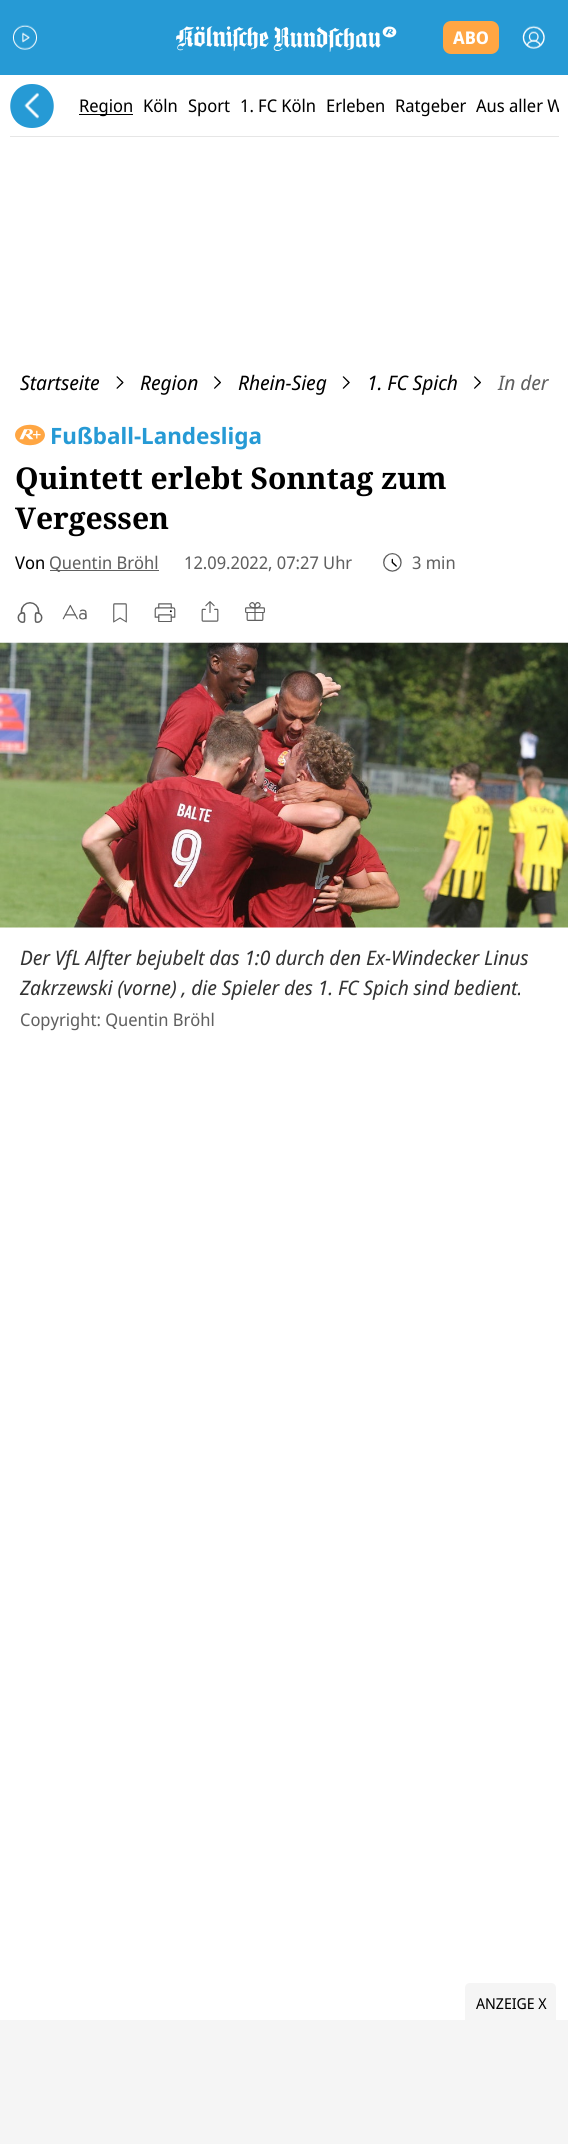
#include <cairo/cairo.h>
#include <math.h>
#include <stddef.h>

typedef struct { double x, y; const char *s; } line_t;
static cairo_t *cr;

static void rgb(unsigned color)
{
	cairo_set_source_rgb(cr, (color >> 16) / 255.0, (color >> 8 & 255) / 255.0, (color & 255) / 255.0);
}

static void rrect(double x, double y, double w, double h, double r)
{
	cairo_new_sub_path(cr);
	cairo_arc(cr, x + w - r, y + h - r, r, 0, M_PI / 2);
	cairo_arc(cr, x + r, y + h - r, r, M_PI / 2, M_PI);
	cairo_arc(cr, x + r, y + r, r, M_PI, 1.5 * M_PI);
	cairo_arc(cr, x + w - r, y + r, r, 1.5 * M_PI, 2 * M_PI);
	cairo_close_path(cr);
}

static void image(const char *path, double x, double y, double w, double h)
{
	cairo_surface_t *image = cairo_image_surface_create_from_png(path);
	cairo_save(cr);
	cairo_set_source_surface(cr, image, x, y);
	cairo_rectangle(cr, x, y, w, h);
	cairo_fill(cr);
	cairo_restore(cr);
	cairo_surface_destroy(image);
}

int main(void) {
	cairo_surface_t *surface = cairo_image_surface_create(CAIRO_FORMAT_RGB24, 568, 2144);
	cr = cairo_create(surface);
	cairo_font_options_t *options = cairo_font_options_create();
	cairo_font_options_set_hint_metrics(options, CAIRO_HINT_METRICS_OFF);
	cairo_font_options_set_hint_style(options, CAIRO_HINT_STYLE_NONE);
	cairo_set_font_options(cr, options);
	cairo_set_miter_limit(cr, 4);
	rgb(0xffffff);
	cairo_paint(cr);
	rgb(0x269ad5);
	cairo_rectangle(cr, 0, 0, 568, 75);
	cairo_fill(cr);
	image("img/1.png", 12, 24, 26, 26);
	image("img/2.png", 176, 26, 221, 26);
	rgb(0xffa643);
	rrect(443, 21, 56, 33, 8);
	cairo_fill(cr);
	image("img/3.png", 522, 25, 23, 24);
	rgb(0xe6e6e6);
	cairo_rectangle(cr, 10, 136, 549, 1);
	cairo_fill(cr);
	rgb(0x269ad5);
	cairo_new_path(cr);
	cairo_move_to(cr, 32, 128);
	cairo_curve_to(cr, 3, 128, 3, 84, 32, 84);
	cairo_curve_to(cr, 61, 84, 61, 128, 32, 128);
	cairo_close_path(cr);
	cairo_fill(cr);
	image("img/4.png", 24, 92, 15, 27);
	rgb(0x000000);
	cairo_rectangle(cr, 79, 114, 54, 1);
	cairo_fill(cr);
	image("img/5.png", 116, 376, 8, 13);
	image("img/6.png", 214, 376, 7, 13);
	image("img/7.png", 342, 376, 8, 13);
	image("img/6.png", 474, 376, 7, 13);
	image("img/8.png", 15, 424, 30, 22);
	rgb(0x606060);
	cairo_rectangle(cr, 50, 570, 109, 1);
	cairo_fill(cr);
	image("img/9.png", 383, 553, 19, 19);
	image("img/10.png", 17, 602, 26, 21);
	image("img/11.png", 62, 604, 25, 16);
	image("img/12.png", 113, 603, 14, 20);
	image("img/13.png", 154, 603, 22, 19);
	image("img/14.png", 201, 601, 18, 21);
	image("img/15.png", 245, 602, 20, 19);
	image("img/16.png", 0, 642, 568, 286);
	rgb(0xf5f5f5);
	cairo_new_path(cr);
	cairo_move_to(cr, 470, 1983);
	cairo_line_to(cr, 551, 1983);
	cairo_curve_to(cr, 554, 1983, 556, 1985, 556, 1988);
	cairo_line_to(cr, 556, 2020);
	cairo_line_to(cr, 465, 2020);
	cairo_line_to(cr, 465, 1988);
	cairo_curve_to(cr, 465, 1985, 467, 1983, 470, 1983);
	cairo_close_path(cr);
	cairo_fill(cr);
	cairo_rectangle(cr, 0, 2020, 568, 124);
	cairo_fill(cr);
	cairo_select_font_face(cr, "Noto Sans Display", CAIRO_FONT_SLANT_NORMAL, CAIRO_FONT_WEIGHT_BOLD);
	cairo_set_font_size(cr, 17.5);
	rgb(0xffffff);
	cairo_move_to(cr, 453, 44);
	cairo_show_text(cr, "ABO");
	cairo_select_font_face(cr, "Noto Sans Display", CAIRO_FONT_SLANT_NORMAL, CAIRO_FONT_WEIGHT_NORMAL);
	rgb(0x000000);
	{
		static const line_t items[] = {
			{79, 112, "Region"},
			{143, 112, "Köln"},
			{188, 112, "Sport"},
			{240, 112, "1. FC Köln"},
			{326, 112, "Erleben"},
			{395, 112, "Ratgeber"},
		};
		for (size_t i = 0; i < sizeof items / sizeof *items; i++) {
			cairo_move_to(cr, items[i].x, items[i].y);
			cairo_show_text(cr, items[i].s);
		}
	}
	cairo_save(cr);
	cairo_rectangle(cr, 79, 81, 480, 50);
	cairo_clip(cr);
	cairo_move_to(cr, 476, 112);
	cairo_show_text(cr, "Aus aller W");
	cairo_restore(cr);
	cairo_select_font_face(cr, "Noto Sans Display", CAIRO_FONT_SLANT_ITALIC, CAIRO_FONT_WEIGHT_NORMAL);
	cairo_set_font_size(cr, 20);
	{
		static const line_t items[] = {
			{20, 390, "Startseite"},
			{140, 390, "Region"},
			{238, 390, "Rhein-Sieg"},
			{367, 390, "1. FC Spich"},
		};
		for (size_t i = 0; i < sizeof items / sizeof *items; i++) {
			cairo_move_to(cr, items[i].x, items[i].y);
			cairo_show_text(cr, items[i].s);
		}
	}
	rgb(0x606060);
	cairo_move_to(cr, 498, 390);
	cairo_show_text(cr, "In der");
	cairo_select_font_face(cr, "Noto Sans", CAIRO_FONT_SLANT_NORMAL, CAIRO_FONT_WEIGHT_BOLD);
	cairo_set_font_size(cr, 22.5);
	rgb(0x269ad5);
	cairo_move_to(cr, 50, 444);
	cairo_show_text(cr, "Fußball-Landesliga");
	cairo_select_font_face(cr, "Noto Serif", CAIRO_FONT_SLANT_NORMAL, CAIRO_FONT_WEIGHT_BOLD);
	cairo_set_font_size(cr, 30);
	rgb(0x000000);
	cairo_move_to(cr, 15, 489);
	cairo_show_text(cr, "Quintett erlebt Sonntag zum");
	cairo_move_to(cr, 15, 529);
	cairo_show_text(cr, "Vergessen");
	cairo_select_font_face(cr, "Noto Sans Display", CAIRO_FONT_SLANT_NORMAL, CAIRO_FONT_WEIGHT_NORMAL);
	cairo_set_font_size(cr, 17.5);
	cairo_move_to(cr, 15, 569);
	cairo_show_text(cr, "Von");
	rgb(0x606060);
	{
		static const line_t items[] = {
			{49, 569, "Quentin Bröhl"},
			{184, 569, "12.09.2022, 07:27 Uhr"},
			{412, 569, "3 min"},
		};
		for (size_t i = 0; i < sizeof items / sizeof *items; i++) {
			cairo_move_to(cr, items[i].x, items[i].y);
			cairo_show_text(cr, items[i].s);
		}
	}
	cairo_select_font_face(cr, "Noto Sans Display", CAIRO_FONT_SLANT_ITALIC, CAIRO_FONT_WEIGHT_NORMAL);
	cairo_set_font_size(cr, 20);
	rgb(0x333333);
	cairo_move_to(cr, 20, 965);
	cairo_show_text(cr, "Der VfL Alfter bejubelt das 1:0 durch den Ex-Windecker Linus");
	cairo_move_to(cr, 20, 995);
	cairo_show_text(cr, "Zakrzewski (vorne) , die Spieler des 1. FC Spich sind bedient.");
	cairo_select_font_face(cr, "Noto Sans Display", CAIRO_FONT_SLANT_NORMAL, CAIRO_FONT_WEIGHT_NORMAL);
	cairo_set_font_size(cr, 17.5);
	rgb(0x606060);
	cairo_move_to(cr, 20, 1026);
	cairo_show_text(cr, "Copyright: Quentin Bröhl");
	cairo_set_font_size(cr, 15);
	rgb(0x000000);
	cairo_move_to(cr, 476, 2009);
	cairo_show_text(cr, "ANZEIGE X");
	cairo_surface_write_to_png(surface, "page.png");
	cairo_font_options_destroy(options);
	cairo_destroy(cr);
	cairo_surface_destroy(surface);
	return 0;
}
